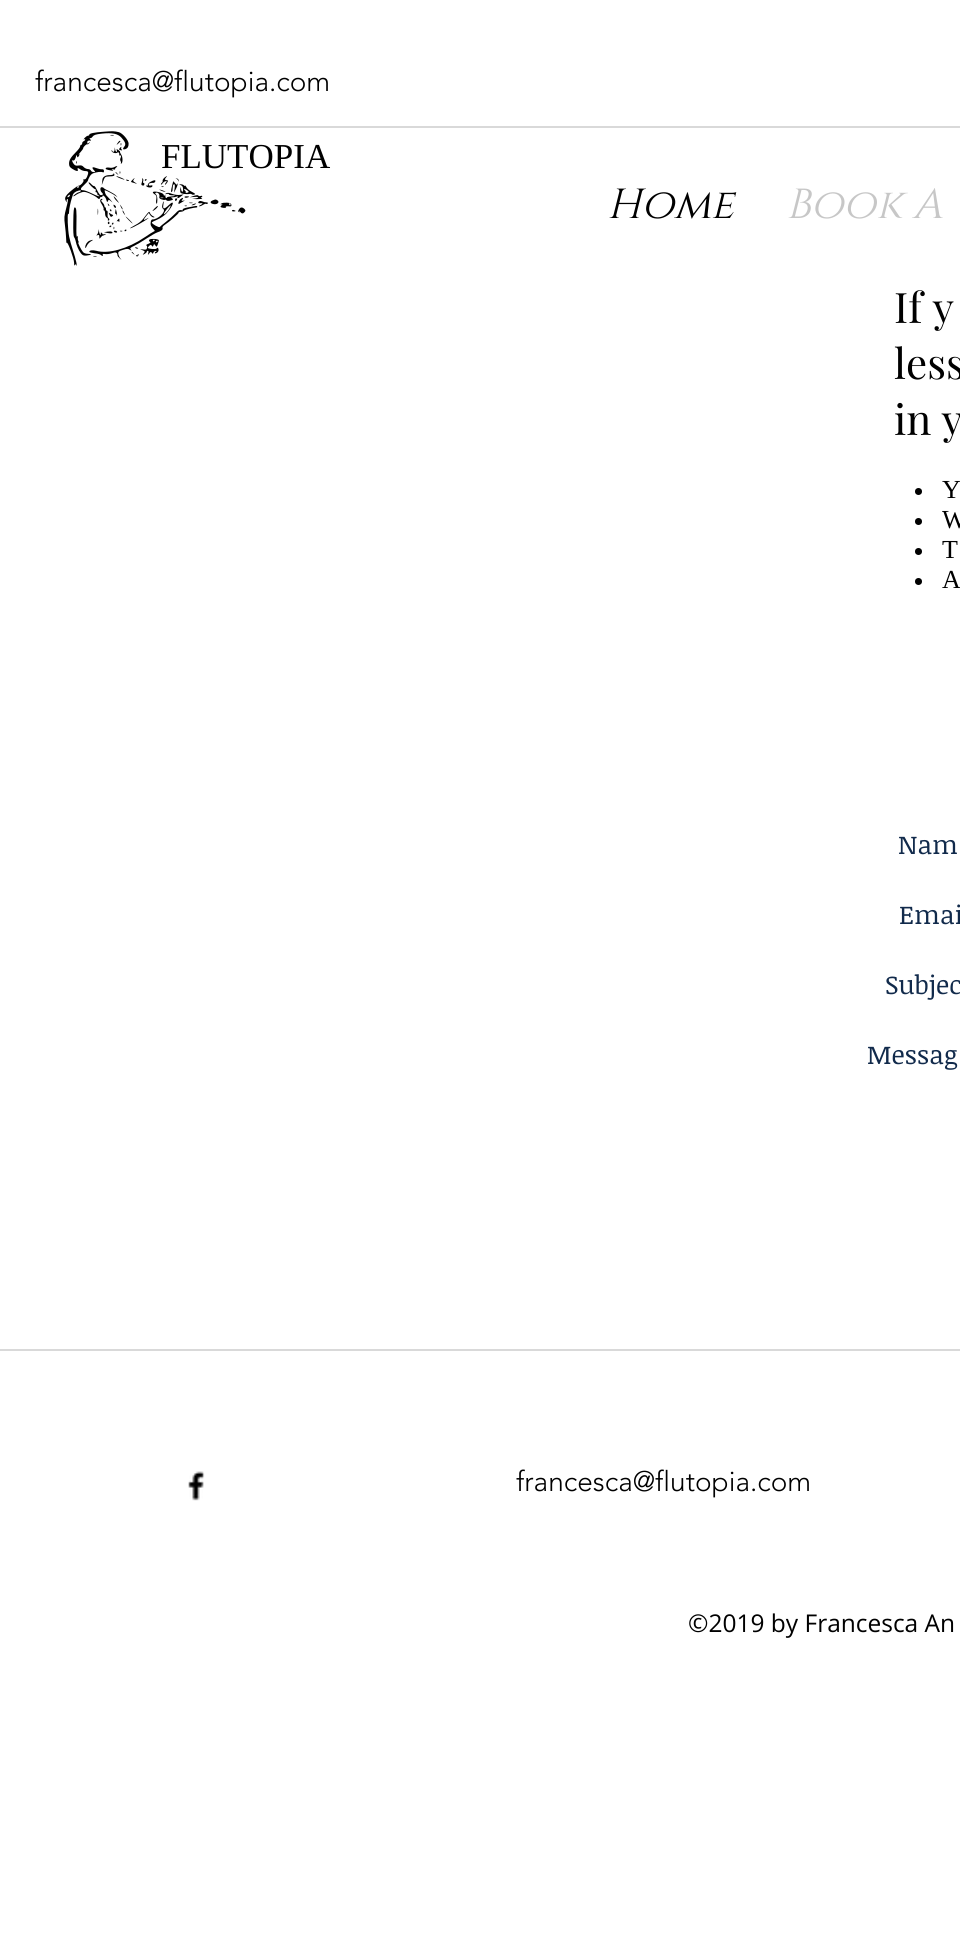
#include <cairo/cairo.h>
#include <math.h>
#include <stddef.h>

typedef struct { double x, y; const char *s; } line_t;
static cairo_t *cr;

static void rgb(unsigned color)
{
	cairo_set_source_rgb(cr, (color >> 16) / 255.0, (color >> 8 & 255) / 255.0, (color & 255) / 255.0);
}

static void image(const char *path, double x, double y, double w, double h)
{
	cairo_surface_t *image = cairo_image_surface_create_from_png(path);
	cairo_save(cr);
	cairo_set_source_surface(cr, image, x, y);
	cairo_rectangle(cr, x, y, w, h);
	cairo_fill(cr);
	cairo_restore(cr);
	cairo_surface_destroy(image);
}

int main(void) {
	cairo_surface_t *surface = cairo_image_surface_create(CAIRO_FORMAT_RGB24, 960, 1945);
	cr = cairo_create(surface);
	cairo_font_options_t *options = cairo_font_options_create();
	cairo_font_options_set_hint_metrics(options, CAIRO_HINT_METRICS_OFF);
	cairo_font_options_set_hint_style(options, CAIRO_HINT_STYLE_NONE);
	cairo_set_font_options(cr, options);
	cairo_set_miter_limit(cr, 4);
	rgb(0xffffff);
	cairo_paint(cr);
	rgb(0xd9d9d9);
	cairo_rectangle(cr, 0, 126, 960, 2);
	cairo_fill(cr);
	image("img/1.png", 64, 131, 182, 135);
	rgb(0x000000);
	cairo_arc(cr, 918.5, 491.5, 3.5, 0, 2 * M_PI);
	cairo_fill(cr);
	cairo_arc(cr, 918.5, 521.5, 3.5, 0, 2 * M_PI);
	cairo_fill(cr);
	cairo_arc(cr, 918.5, 551.5, 3.5, 0, 2 * M_PI);
	cairo_fill(cr);
	cairo_arc(cr, 918.5, 581.5, 3.5, 0, 2 * M_PI);
	cairo_fill(cr);
	rgb(0xd9d9d9);
	cairo_rectangle(cr, 0, 1349, 960, 2);
	cairo_fill(cr);
	image("img/2.png", 188, 1471, 17, 30);
	cairo_select_font_face(cr, "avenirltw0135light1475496 Light", CAIRO_FONT_SLANT_NORMAL, CAIRO_FONT_WEIGHT_NORMAL);
	cairo_set_font_size(cr, 28);
	rgb(0x000000);
	cairo_move_to(cr, 35, 91);
	cairo_show_text(cr, "francesca@flutopia.com");
	cairo_select_font_face(cr, "Liberation Serif", CAIRO_FONT_SLANT_NORMAL, CAIRO_FONT_WEIGHT_NORMAL);
	cairo_set_font_size(cr, 35);
	cairo_move_to(cr, 161, 168);
	cairo_show_text(cr, "FLUTOPIA");
	cairo_select_font_face(cr, "Cinzel", CAIRO_FONT_SLANT_ITALIC, CAIRO_FONT_WEIGHT_NORMAL);
	cairo_set_font_size(cr, 42);
	cairo_move_to(cr, 607, 218);
	cairo_show_text(cr, "Home");
	rgb(0xc7c7c7);
	cairo_move_to(cr, 786, 218);
	cairo_show_text(cr, "Book A");
	cairo_select_font_face(cr, "Playfair Display", CAIRO_FONT_SLANT_NORMAL, CAIRO_FONT_WEIGHT_NORMAL);
	rgb(0x000000);
	{
		static const line_t items[] = {
			{894, 323, "If y"},
			{894, 379, "less"},
			{894, 435, "in y"},
		};
		for (size_t i = 0; i < sizeof items / sizeof *items; i++) {
			cairo_move_to(cr, items[i].x, items[i].y);
			cairo_show_text(cr, items[i].s);
		}
	}
	cairo_select_font_face(cr, "Liberation Serif", CAIRO_FONT_SLANT_NORMAL, CAIRO_FONT_WEIGHT_NORMAL);
	cairo_set_font_size(cr, 26);
	{
		static const line_t items[] = {
			{942, 498, "Y"},
			{942, 528, "W"},
			{942, 558, "T"},
			{942, 588, "A"},
		};
		for (size_t i = 0; i < sizeof items / sizeof *items; i++) {
			cairo_move_to(cr, items[i].x, items[i].y);
			cairo_show_text(cr, items[i].s);
		}
	}
	cairo_select_font_face(cr, "Noticia Text", CAIRO_FONT_SLANT_NORMAL, CAIRO_FONT_WEIGHT_NORMAL);
	rgb(0x112a4b);
	{
		static const line_t items[] = {
			{898, 854, "Nam"},
			{899, 924, "Emai"},
			{885, 994, "Subjec"},
			{867, 1064, "Messag"},
		};
		for (size_t i = 0; i < sizeof items / sizeof *items; i++) {
			cairo_move_to(cr, items[i].x, items[i].y);
			cairo_show_text(cr, items[i].s);
		}
	}
	cairo_select_font_face(cr, "avenirltw0135light1475496 Light", CAIRO_FONT_SLANT_NORMAL, CAIRO_FONT_WEIGHT_NORMAL);
	cairo_set_font_size(cr, 28);
	rgb(0x000000);
	cairo_move_to(cr, 516, 1491);
	cairo_show_text(cr, "francesca@flutopia.com");
	cairo_select_font_face(cr, "Open Sans", CAIRO_FONT_SLANT_NORMAL, CAIRO_FONT_WEIGHT_NORMAL);
	cairo_set_font_size(cr, 24.5);
	cairo_move_to(cr, 688, 1632);
	cairo_show_text(cr, "©2019 by Francesca An");
	cairo_surface_write_to_png(surface, "page.png");
	cairo_font_options_destroy(options);
	cairo_destroy(cr);
	cairo_surface_destroy(surface);
	return 0;
}
